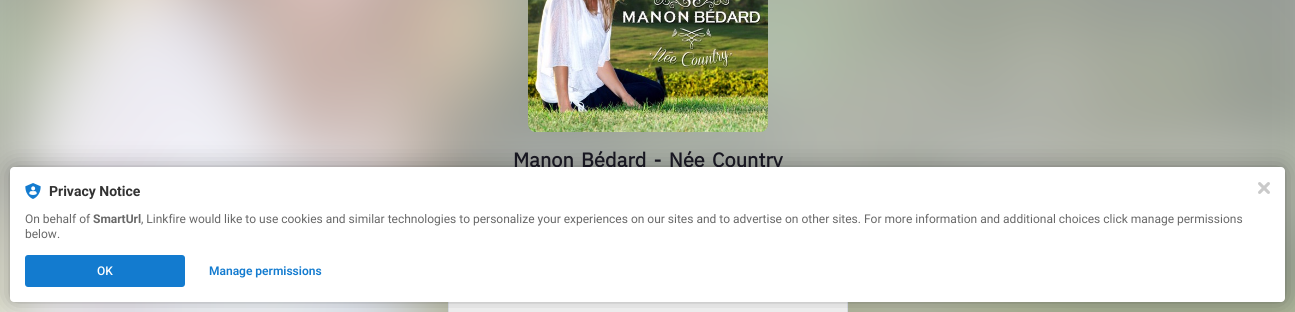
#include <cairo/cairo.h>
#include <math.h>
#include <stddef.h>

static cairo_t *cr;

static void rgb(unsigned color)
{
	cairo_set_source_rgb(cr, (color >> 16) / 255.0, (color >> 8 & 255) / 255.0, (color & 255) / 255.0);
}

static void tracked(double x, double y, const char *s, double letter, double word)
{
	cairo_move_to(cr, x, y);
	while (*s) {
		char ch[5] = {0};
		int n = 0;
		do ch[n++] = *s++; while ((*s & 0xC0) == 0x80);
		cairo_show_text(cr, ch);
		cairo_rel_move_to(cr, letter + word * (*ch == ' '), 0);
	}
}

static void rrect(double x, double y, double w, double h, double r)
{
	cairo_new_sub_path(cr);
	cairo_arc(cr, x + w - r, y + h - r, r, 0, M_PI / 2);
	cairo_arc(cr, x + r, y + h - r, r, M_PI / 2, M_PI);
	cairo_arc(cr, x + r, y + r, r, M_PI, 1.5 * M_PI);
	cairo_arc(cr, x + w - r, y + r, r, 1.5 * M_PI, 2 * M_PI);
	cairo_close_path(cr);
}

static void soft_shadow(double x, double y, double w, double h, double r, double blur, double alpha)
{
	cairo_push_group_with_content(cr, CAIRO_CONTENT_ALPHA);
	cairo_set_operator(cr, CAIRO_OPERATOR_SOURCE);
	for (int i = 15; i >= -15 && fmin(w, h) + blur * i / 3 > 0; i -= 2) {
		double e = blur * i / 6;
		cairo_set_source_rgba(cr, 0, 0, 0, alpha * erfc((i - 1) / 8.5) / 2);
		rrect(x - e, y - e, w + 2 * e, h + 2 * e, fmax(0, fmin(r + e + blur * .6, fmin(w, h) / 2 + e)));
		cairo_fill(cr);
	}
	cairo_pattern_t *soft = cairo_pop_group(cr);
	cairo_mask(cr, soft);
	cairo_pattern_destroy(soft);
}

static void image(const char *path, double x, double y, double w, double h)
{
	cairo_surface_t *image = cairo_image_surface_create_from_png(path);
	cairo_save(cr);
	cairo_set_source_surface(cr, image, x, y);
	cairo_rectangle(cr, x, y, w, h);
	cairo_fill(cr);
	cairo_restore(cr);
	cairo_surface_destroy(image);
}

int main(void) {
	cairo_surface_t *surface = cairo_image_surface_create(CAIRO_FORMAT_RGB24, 1295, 312);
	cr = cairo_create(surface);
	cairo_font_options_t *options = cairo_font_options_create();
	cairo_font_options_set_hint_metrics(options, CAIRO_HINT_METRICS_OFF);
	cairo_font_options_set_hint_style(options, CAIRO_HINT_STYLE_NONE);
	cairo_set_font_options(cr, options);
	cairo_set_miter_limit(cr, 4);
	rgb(0xffffff);
	cairo_paint(cr);
	image("img/1.png", 0, 0, 1295, 312);
	image("img/2.png", 528, 0, 240, 132);
	cairo_rectangle(cr, 448.5, 228.5, 399, 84);
	rgb(0xe6eaf2);
	cairo_set_line_width(cr, 1);
	cairo_stroke(cr);
	rgb(0xffffff);
	cairo_rectangle(cr, 449, 302, 398, 10);
	cairo_fill(cr);
	rgb(0x000000);
	soft_shadow(10, 167, 1275, 135, 4, 2, 0.12);
	soft_shadow(10, 167, 1275, 135, 4, 12, 0.3);
	cairo_select_font_face(cr, "IBM Plex Sans", CAIRO_FONT_SLANT_NORMAL, CAIRO_FONT_WEIGHT_BOLD);
	cairo_set_font_size(cr, 20);
	rgb(0x181721);
	tracked(513, 167, "Manon Bédard - Née Country", 0, 2.5);
	rgb(0xffffff);
	rrect(10, 167, 1275, 135, 4);
	cairo_fill(cr);
	image("img/3.png", 25, 183, 16, 16);
	cairo_select_font_face(cr, "Roboto", CAIRO_FONT_SLANT_NORMAL, CAIRO_FONT_WEIGHT_BOLD);
	cairo_set_font_size(cr, 14);
	rgb(0x323232);
	cairo_move_to(cr, 49, 196);
	cairo_show_text(cr, "Privacy Notice");
	cairo_select_font_face(cr, "Roboto", CAIRO_FONT_SLANT_NORMAL, CAIRO_FONT_WEIGHT_NORMAL);
	cairo_set_font_size(cr, 12);
	rgb(0x686868);
	cairo_move_to(cr, 25, 223);
	cairo_show_text(cr, "On behalf of");
	cairo_select_font_face(cr, "Roboto", CAIRO_FONT_SLANT_NORMAL, CAIRO_FONT_WEIGHT_BOLD);
	cairo_move_to(cr, 93, 223);
	cairo_show_text(cr, "SmartUrl");
	cairo_select_font_face(cr, "Roboto", CAIRO_FONT_SLANT_NORMAL, CAIRO_FONT_WEIGHT_NORMAL);
	cairo_move_to(cr, 141, 223);
	cairo_show_text(cr, ", Linkfire would like to use cookies and similar technologies to personalize your experiences on our sites and to advertise on other sites. For more information and additional choices click manage permissions");
	cairo_move_to(cr, 25, 238);
	cairo_show_text(cr, "below.");
	rgb(0x137bcf);
	rrect(25, 255, 160, 32, 3);
	cairo_fill(cr);
	cairo_select_font_face(cr, "Roboto Medium", CAIRO_FONT_SLANT_NORMAL, CAIRO_FONT_WEIGHT_NORMAL);
	rgb(0xffffff);
	cairo_move_to(cr, 97, 275);
	cairo_show_text(cr, "OK");
	cairo_select_font_face(cr, "Roboto SemiBold", CAIRO_FONT_SLANT_NORMAL, CAIRO_FONT_WEIGHT_NORMAL);
	rgb(0x137bcf);
	cairo_move_to(cr, 209, 275);
	cairo_show_text(cr, "Manage permissions");
	image("img/4.png", 1258, 182, 12, 12);
	cairo_surface_write_to_png(surface, "page.png");
	cairo_font_options_destroy(options);
	cairo_destroy(cr);
	cairo_surface_destroy(surface);
	return 0;
}
